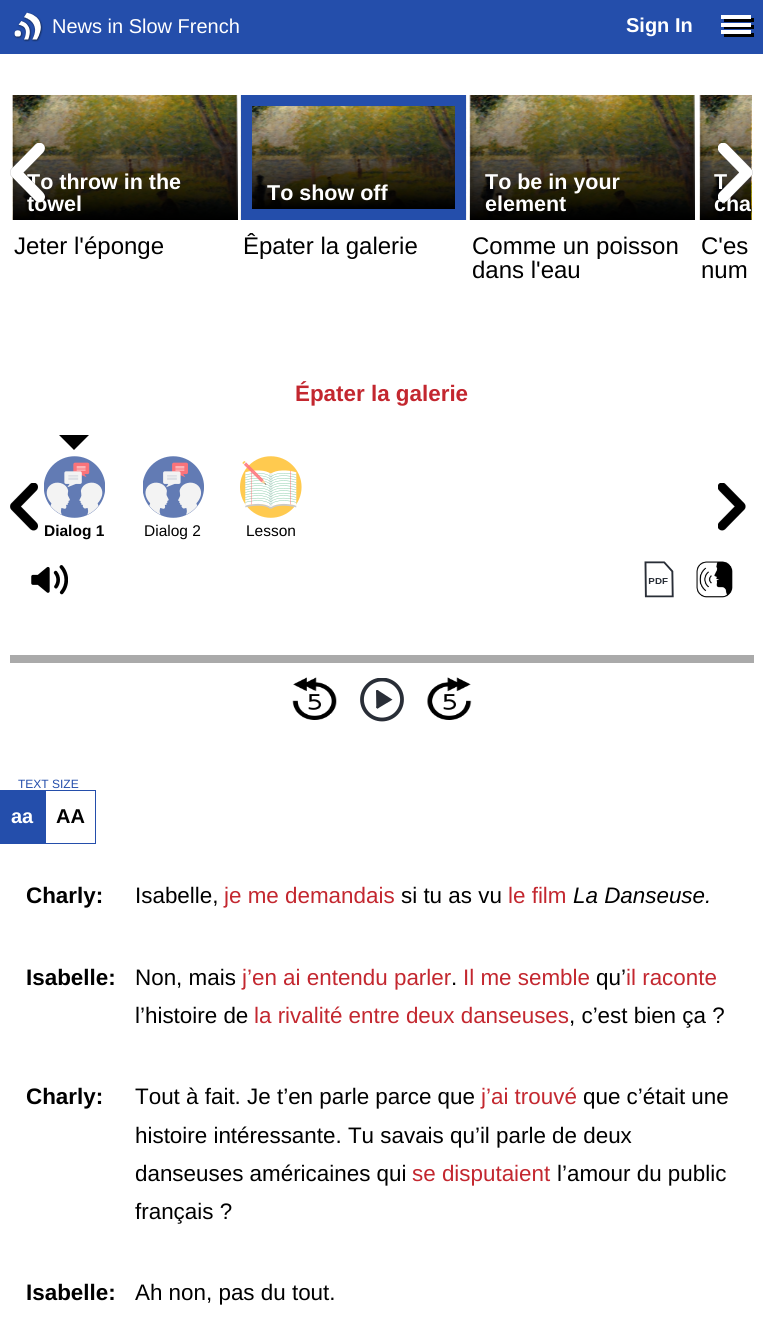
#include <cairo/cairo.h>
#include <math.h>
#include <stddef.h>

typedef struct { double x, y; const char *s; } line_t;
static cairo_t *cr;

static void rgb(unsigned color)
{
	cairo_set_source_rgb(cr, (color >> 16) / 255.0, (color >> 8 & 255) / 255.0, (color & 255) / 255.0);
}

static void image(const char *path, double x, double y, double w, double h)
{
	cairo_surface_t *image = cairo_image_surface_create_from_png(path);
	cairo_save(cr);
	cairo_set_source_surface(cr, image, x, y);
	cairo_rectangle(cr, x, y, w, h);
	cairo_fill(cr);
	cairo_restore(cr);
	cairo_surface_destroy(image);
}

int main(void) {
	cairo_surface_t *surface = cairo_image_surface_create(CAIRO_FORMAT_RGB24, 763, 1330);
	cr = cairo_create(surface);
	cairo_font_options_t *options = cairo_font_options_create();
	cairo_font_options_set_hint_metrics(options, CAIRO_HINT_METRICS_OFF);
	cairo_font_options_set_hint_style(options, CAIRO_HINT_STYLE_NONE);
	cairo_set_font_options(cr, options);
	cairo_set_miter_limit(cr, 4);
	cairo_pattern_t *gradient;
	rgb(0xffffff);
	cairo_paint(cr);
	rgb(0x244eab);
	cairo_rectangle(cr, 0, 0, 763, 54);
	cairo_fill(cr);
	image("img/1.png", 13, 12, 30, 30);
	rgb(0x000000);
	cairo_new_path(cr);
	cairo_move_to(cr, 724, 19);
	cairo_line_to(cr, 724, 22);
	cairo_line_to(cr, 754, 22);
	cairo_line_to(cr, 754, 18);
	cairo_line_to(cr, 751, 18);
	cairo_line_to(cr, 751, 19);
	cairo_close_path(cr);
	cairo_fill(cr);
	rgb(0xffffff);
	cairo_rectangle(cr, 721, 15, 30, 4);
	cairo_fill(cr);
	rgb(0x000000);
	cairo_new_path(cr);
	cairo_move_to(cr, 724, 26);
	cairo_line_to(cr, 724, 29);
	cairo_line_to(cr, 754, 29);
	cairo_line_to(cr, 754, 25);
	cairo_line_to(cr, 751, 25);
	cairo_line_to(cr, 751, 26);
	cairo_close_path(cr);
	cairo_fill(cr);
	rgb(0xffffff);
	cairo_rectangle(cr, 721, 23, 30, 4);
	cairo_fill(cr);
	rgb(0x000000);
	cairo_new_path(cr);
	cairo_move_to(cr, 724, 34);
	cairo_line_to(cr, 724, 37);
	cairo_line_to(cr, 754, 37);
	cairo_line_to(cr, 754, 33);
	cairo_line_to(cr, 751, 33);
	cairo_line_to(cr, 751, 34);
	cairo_close_path(cr);
	cairo_fill(cr);
	rgb(0xffffff);
	cairo_rectangle(cr, 721, 30, 30, 4);
	cairo_fill(cr);
	rgb(0xfafafa);
	cairo_rectangle(cr, 236, 95, 2, 124);
	cairo_fill(cr);
	image("img/4.png", 12, 95, 226, 125);
	image("img/5.png", 12, 95, 226, 125);
	gradient = cairo_pattern_create_linear(125, 220, 125, 95);
	cairo_pattern_add_color_stop_rgba(gradient, 0, 0, 0, 0, 1);
	cairo_pattern_add_color_stop_rgba(gradient, 1, 0, 0, 0, 0);
	cairo_set_source(cr, gradient);
	cairo_pattern_destroy(gradient);
	cairo_rectangle(cr, 13, 98, 225, 122);
	cairo_fill(cr);
	image("img/6.png", 240, 95, 227, 125);
	image("img/7.png", 240, 95, 215, 125);
	gradient = cairo_pattern_create_linear(354, 209, 354, 106);
	cairo_pattern_add_color_stop_rgba(gradient, 0, 0, 0, 0, 1);
	cairo_pattern_add_color_stop_rgba(gradient, 1, 0, 0, 0, 0);
	cairo_set_source(cr, gradient);
	cairo_pattern_destroy(gradient);
	cairo_rectangle(cr, 252, 108, 203, 101);
	cairo_fill(cr);
	cairo_rectangle(cr, 246.5, 100.5, 214, 114);
	rgb(0x244eab);
	cairo_set_line_width(cr, 11);
	cairo_stroke(cr);
	image("img/8.png", 469, 95, 226, 125);
	image("img/9.png", 469, 95, 226, 125);
	gradient = cairo_pattern_create_linear(583, 220, 583, 95);
	cairo_pattern_add_color_stop_rgba(gradient, 0, 0, 0, 0, 1);
	cairo_pattern_add_color_stop_rgba(gradient, 1, 0, 0, 0, 0);
	cairo_set_source(cr, gradient);
	cairo_pattern_destroy(gradient);
	cairo_rectangle(cr, 470, 98, 225, 122);
	cairo_fill(cr);
	image("img/10.png", 699, 95, 2, 125);
	image("img/11.png", 699, 95, 53, 125);
	gradient = cairo_pattern_create_linear(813, 220, 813, 95);
	cairo_pattern_add_color_stop_rgba(gradient, 0, 0, 0, 0, 1);
	cairo_pattern_add_color_stop_rgba(gradient, 1, 0, 0, 0, 0);
	cairo_set_source(cr, gradient);
	cairo_pattern_destroy(gradient);
	cairo_rectangle(cr, 700, 98, 51, 122);
	cairo_fill(cr);
	image("img/12.png", 10, 483, 28, 48);
	image("img/13.png", 718, 483, 28, 48);
	image("img/14.png", 44, 456, 61, 62);
	rgb(0x000000);
	cairo_new_path(cr);
	cairo_move_to(cr, 59, 435);
	cairo_line_to(cr, 89, 435);
	cairo_line_to(cr, 74, 450);
	cairo_close_path(cr);
	cairo_fill(cr);
	image("img/15.png", 143, 456, 61, 62);
	image("img/16.png", 240, 456, 62, 62);
	image("img/17.png", 31, 565, 37, 30);
	image("img/18.png", 644, 561, 30, 37);
	image("img/19.png", 696, 561, 37, 37);
	rgb(0xaaaaaa);
	cairo_rectangle(cr, 10, 655, 744, 8);
	cairo_fill(cr);
	image("img/20.png", 292, 677, 45, 43);
	image("img/21.png", 360, 678, 44, 44);
	image("img/22.png", 427, 677, 45, 43);
	rgb(0x244eab);
	cairo_rectangle(cr, 0, 790, 45, 54);
	cairo_fill(cr);
	cairo_rectangle(cr, 45.5, 790.5, 50, 53);
	cairo_set_line_width(cr, 1);
	cairo_stroke(cr);
	cairo_select_font_face(cr, "Liberation Sans", CAIRO_FONT_SLANT_NORMAL, CAIRO_FONT_WEIGHT_NORMAL);
	cairo_set_font_size(cr, 20);
	rgb(0xffffff);
	cairo_move_to(cr, 52, 33);
	cairo_show_text(cr, "News in Slow French");
	cairo_select_font_face(cr, "Liberation Sans", CAIRO_FONT_SLANT_NORMAL, CAIRO_FONT_WEIGHT_BOLD);
	cairo_move_to(cr, 626, 32);
	cairo_show_text(cr, "Sign In");
	cairo_set_font_size(cr, 21.5);
	cairo_move_to(cr, 27, 189);
	cairo_show_text(cr, "To throw in the");
	cairo_move_to(cr, 27, 211);
	cairo_show_text(cr, "towel");
	image("img/2.png", 10, 143, 35, 60);
	cairo_select_font_face(cr, "Liberation Sans", CAIRO_FONT_SLANT_NORMAL, CAIRO_FONT_WEIGHT_NORMAL);
	cairo_set_font_size(cr, 24);
	rgb(0x000000);
	cairo_move_to(cr, 14, 254);
	cairo_show_text(cr, "Jeter l'éponge");
	cairo_select_font_face(cr, "Liberation Sans", CAIRO_FONT_SLANT_NORMAL, CAIRO_FONT_WEIGHT_BOLD);
	cairo_set_font_size(cr, 21.5);
	rgb(0xffffff);
	cairo_move_to(cr, 267, 200);
	cairo_show_text(cr, "To show off");
	cairo_select_font_face(cr, "Liberation Sans", CAIRO_FONT_SLANT_NORMAL, CAIRO_FONT_WEIGHT_NORMAL);
	cairo_set_font_size(cr, 24);
	rgb(0x000000);
	cairo_move_to(cr, 243, 254);
	cairo_show_text(cr, "Êpater la galerie");
	cairo_select_font_face(cr, "Liberation Sans", CAIRO_FONT_SLANT_NORMAL, CAIRO_FONT_WEIGHT_BOLD);
	cairo_set_font_size(cr, 21.5);
	rgb(0xffffff);
	cairo_move_to(cr, 485, 189);
	cairo_show_text(cr, "To be in your");
	cairo_move_to(cr, 485, 211);
	cairo_show_text(cr, "element");
	cairo_select_font_face(cr, "Liberation Sans", CAIRO_FONT_SLANT_NORMAL, CAIRO_FONT_WEIGHT_NORMAL);
	cairo_set_font_size(cr, 24);
	rgb(0x000000);
	cairo_move_to(cr, 472, 254);
	cairo_show_text(cr, "Comme un poisson");
	cairo_move_to(cr, 472, 278);
	cairo_show_text(cr, "dans l'eau");
	cairo_select_font_face(cr, "Liberation Sans", CAIRO_FONT_SLANT_NORMAL, CAIRO_FONT_WEIGHT_BOLD);
	cairo_set_font_size(cr, 21.5);
	rgb(0xffffff);
	cairo_move_to(cr, 714, 189);
	cairo_show_text(cr, "T");
	cairo_move_to(cr, 714, 211);
	cairo_show_text(cr, "cha");
	image("img/3.png", 718, 143, 35, 60);
	cairo_select_font_face(cr, "Liberation Sans", CAIRO_FONT_SLANT_NORMAL, CAIRO_FONT_WEIGHT_NORMAL);
	cairo_set_font_size(cr, 24);
	rgb(0x000000);
	cairo_move_to(cr, 701, 254);
	cairo_show_text(cr, "C'es");
	cairo_move_to(cr, 701, 278);
	cairo_show_text(cr, "num");
	cairo_select_font_face(cr, "Liberation Sans", CAIRO_FONT_SLANT_NORMAL, CAIRO_FONT_WEIGHT_BOLD);
	cairo_set_font_size(cr, 22.4);
	rgb(0xc3272f);
	cairo_move_to(cr, 295, 401);
	cairo_show_text(cr, "Épater la galerie");
	cairo_set_font_size(cr, 15.5);
	rgb(0x000000);
	cairo_move_to(cr, 44, 536);
	cairo_show_text(cr, "Dialog 1");
	cairo_select_font_face(cr, "Liberation Sans", CAIRO_FONT_SLANT_NORMAL, CAIRO_FONT_WEIGHT_NORMAL);
	cairo_move_to(cr, 144, 536);
	cairo_show_text(cr, "Dialog 2");
	cairo_move_to(cr, 246, 536);
	cairo_show_text(cr, "Lesson");
	cairo_set_font_size(cr, 12);
	rgb(0x244eab);
	cairo_move_to(cr, 18, 788);
	cairo_show_text(cr, "TEXT SIZE");
	cairo_select_font_face(cr, "Liberation Sans", CAIRO_FONT_SLANT_NORMAL, CAIRO_FONT_WEIGHT_BOLD);
	cairo_set_font_size(cr, 20);
	rgb(0xffffff);
	cairo_move_to(cr, 11, 823);
	cairo_show_text(cr, "aa");
	rgb(0x000000);
	cairo_move_to(cr, 56, 823);
	cairo_show_text(cr, "AA");
	cairo_set_font_size(cr, 22.4);
	cairo_move_to(cr, 26, 903);
	cairo_show_text(cr, "Charly:");
	cairo_select_font_face(cr, "Liberation Sans", CAIRO_FONT_SLANT_NORMAL, CAIRO_FONT_WEIGHT_NORMAL);
	cairo_move_to(cr, 135, 903);
	cairo_show_text(cr, "Isabelle,");
	rgb(0xc3272f);
	cairo_move_to(cr, 224, 903);
	cairo_show_text(cr, "je me demandais");
	rgb(0x000000);
	cairo_move_to(cr, 401, 903);
	cairo_show_text(cr, "si tu as vu");
	rgb(0xc3272f);
	cairo_move_to(cr, 508, 903);
	cairo_show_text(cr, "le film");
	cairo_select_font_face(cr, "Liberation Sans", CAIRO_FONT_SLANT_ITALIC, CAIRO_FONT_WEIGHT_NORMAL);
	rgb(0x000000);
	cairo_move_to(cr, 573, 903);
	cairo_show_text(cr, "La Danseuse.");
	cairo_select_font_face(cr, "Liberation Sans", CAIRO_FONT_SLANT_NORMAL, CAIRO_FONT_WEIGHT_BOLD);
	cairo_move_to(cr, 26, 985);
	cairo_show_text(cr, "Isabelle:");
	cairo_select_font_face(cr, "Liberation Sans", CAIRO_FONT_SLANT_NORMAL, CAIRO_FONT_WEIGHT_NORMAL);
	cairo_move_to(cr, 135, 985);
	cairo_show_text(cr, "Non, mais");
	rgb(0xc3272f);
	cairo_move_to(cr, 242, 985);
	cairo_show_text(cr, "j’en ai entendu parler");
	rgb(0x000000);
	cairo_move_to(cr, 451, 985);
	cairo_show_text(cr, ".");
	rgb(0xc3272f);
	cairo_move_to(cr, 463, 985);
	cairo_show_text(cr, "Il me semble");
	rgb(0x000000);
	cairo_move_to(cr, 596, 985);
	cairo_show_text(cr, "qu’");
	rgb(0xc3272f);
	cairo_move_to(cr, 626, 985);
	cairo_show_text(cr, "il raconte");
	rgb(0x000000);
	cairo_move_to(cr, 135, 1023);
	cairo_show_text(cr, "l’histoire de");
	rgb(0xc3272f);
	cairo_move_to(cr, 254, 1023);
	cairo_show_text(cr, "la rivalité entre deux danseuses");
	rgb(0x000000);
	cairo_move_to(cr, 569, 1023);
	cairo_show_text(cr, ", c’est bien ça ?");
	cairo_select_font_face(cr, "Liberation Sans", CAIRO_FONT_SLANT_NORMAL, CAIRO_FONT_WEIGHT_BOLD);
	cairo_move_to(cr, 26, 1104);
	cairo_show_text(cr, "Charly:");
	cairo_select_font_face(cr, "Liberation Sans", CAIRO_FONT_SLANT_NORMAL, CAIRO_FONT_WEIGHT_NORMAL);
	cairo_move_to(cr, 135, 1104);
	cairo_show_text(cr, "Tout à fait. Je t’en parle parce que");
	rgb(0xc3272f);
	cairo_move_to(cr, 481, 1104);
	cairo_show_text(cr, "j’ai trouvé");
	rgb(0x000000);
	{
		static const line_t items[] = {
			{583, 1104, "que c’était une"},
			{135, 1143, "histoire intéressante. Tu savais qu’il parle de deux"},
			{135, 1181, "danseuses américaines qui"},
		};
		for (size_t i = 0; i < sizeof items / sizeof *items; i++) {
			cairo_move_to(cr, items[i].x, items[i].y);
			cairo_show_text(cr, items[i].s);
		}
	}
	rgb(0xc3272f);
	cairo_move_to(cr, 412, 1181);
	cairo_show_text(cr, "se disputaient");
	rgb(0x000000);
	cairo_move_to(cr, 557, 1181);
	cairo_show_text(cr, "l’amour du public");
	cairo_move_to(cr, 135, 1219);
	cairo_show_text(cr, "français ?");
	cairo_select_font_face(cr, "Liberation Sans", CAIRO_FONT_SLANT_NORMAL, CAIRO_FONT_WEIGHT_BOLD);
	cairo_move_to(cr, 26, 1300);
	cairo_show_text(cr, "Isabelle:");
	cairo_select_font_face(cr, "Liberation Sans", CAIRO_FONT_SLANT_NORMAL, CAIRO_FONT_WEIGHT_NORMAL);
	cairo_move_to(cr, 135, 1300);
	cairo_show_text(cr, "Ah non, pas du tout.");
	cairo_surface_write_to_png(surface, "page.png");
	cairo_font_options_destroy(options);
	cairo_destroy(cr);
	cairo_surface_destroy(surface);
	return 0;
}
